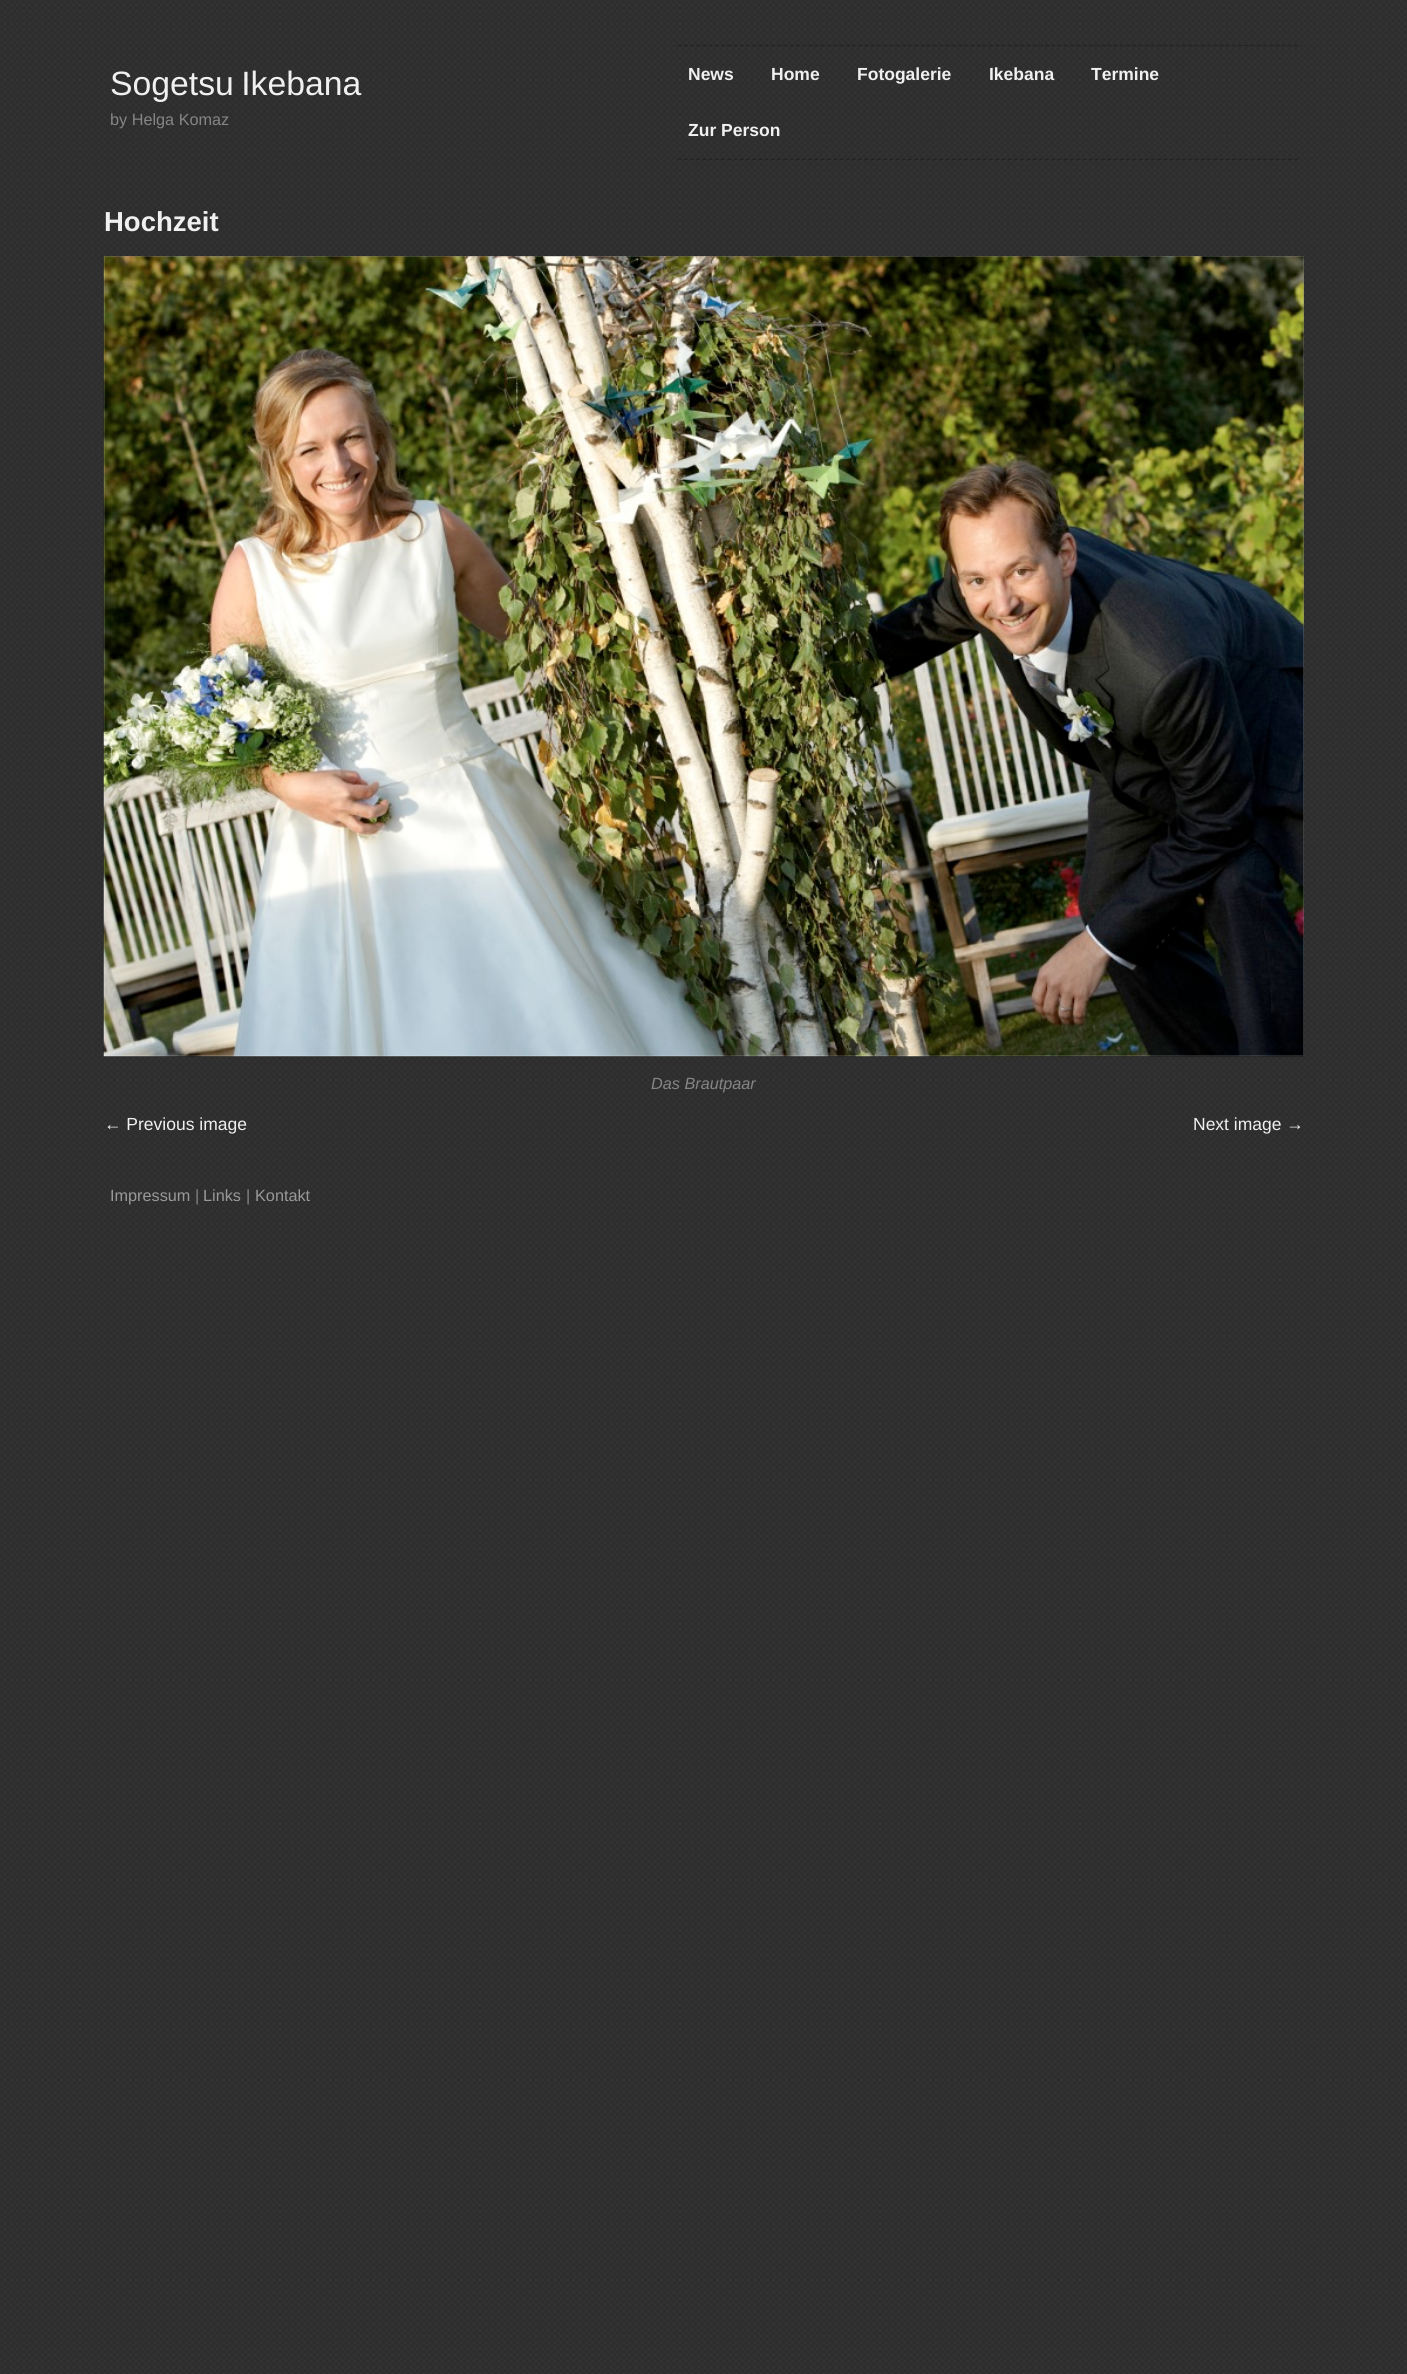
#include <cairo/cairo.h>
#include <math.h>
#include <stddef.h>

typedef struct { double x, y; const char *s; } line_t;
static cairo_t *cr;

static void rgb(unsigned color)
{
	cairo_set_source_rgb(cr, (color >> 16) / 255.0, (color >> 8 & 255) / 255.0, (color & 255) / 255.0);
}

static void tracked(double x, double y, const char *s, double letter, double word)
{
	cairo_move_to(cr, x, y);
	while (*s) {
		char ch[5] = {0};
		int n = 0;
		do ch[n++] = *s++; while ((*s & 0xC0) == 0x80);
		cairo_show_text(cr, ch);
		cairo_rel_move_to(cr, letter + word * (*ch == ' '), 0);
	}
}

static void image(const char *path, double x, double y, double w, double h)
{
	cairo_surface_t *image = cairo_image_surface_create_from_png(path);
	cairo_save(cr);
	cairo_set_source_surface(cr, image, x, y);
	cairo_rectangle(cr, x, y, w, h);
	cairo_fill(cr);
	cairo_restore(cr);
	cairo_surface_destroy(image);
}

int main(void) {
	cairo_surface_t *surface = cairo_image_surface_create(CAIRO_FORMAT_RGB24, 1407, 2374);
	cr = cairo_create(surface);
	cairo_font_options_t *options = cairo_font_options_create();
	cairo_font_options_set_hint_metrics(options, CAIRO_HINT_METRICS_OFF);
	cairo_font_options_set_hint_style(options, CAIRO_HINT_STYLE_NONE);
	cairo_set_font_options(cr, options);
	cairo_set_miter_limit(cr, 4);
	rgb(0x2d2d2d);
	cairo_paint(cr);
	image("img/1.png", 0, 0, 1407, 2374);
	cairo_new_path(cr);
	cairo_move_to(cr, 677.5, 45.5);
	cairo_line_to(cr, 1297.5, 45.5);
	rgb(0x222222);
	cairo_set_line_width(cr, 1.2);
	cairo_set_dash(cr, (double[]){3.75, 2.48}, 2, 0);
	cairo_stroke(cr);
	cairo_new_path(cr);
	cairo_move_to(cr, 677.5, 159.5);
	cairo_line_to(cr, 1297.5, 159.5);
	cairo_stroke(cr);
	image("img/2.png", 103, 256, 1201, 801);
	cairo_rectangle(cr, 104.5, 256.5, 1199, 799);
	cairo_set_source_rgba(cr, 1, 1, 1, 0.14);
	cairo_set_line_width(cr, 1);
	cairo_set_dash(cr, NULL, 0, 0);
	cairo_stroke(cr);
	cairo_select_font_face(cr, "Liberation Sans", CAIRO_FONT_SLANT_NORMAL, CAIRO_FONT_WEIGHT_NORMAL);
	cairo_set_font_size(cr, 33.75);
	rgb(0xf0f0f0);
	tracked(110, 95, "Sogetsu Ikebana", 0, -2);
	cairo_set_font_size(cr, 16.25);
	rgb(0x858585);
	cairo_move_to(cr, 110, 125);
	cairo_show_text(cr, "by Helga Komaz");
	cairo_select_font_face(cr, "Liberation Sans", CAIRO_FONT_SLANT_NORMAL, CAIRO_FONT_WEIGHT_BOLD);
	cairo_set_font_size(cr, 17.5);
	rgb(0xf0f0f0);
	{
		static const line_t items[] = {
			{688, 80, "News"},
			{771, 80, "Home"},
			{857, 80, "Fotogalerie"},
			{989, 80, "Ikebana"},
			{1091, 80, "Termine"},
			{688, 136, "Zur Person"},
		};
		for (size_t i = 0; i < sizeof items / sizeof *items; i++) {
			cairo_move_to(cr, items[i].x, items[i].y);
			cairo_show_text(cr, items[i].s);
		}
	}
	cairo_set_font_size(cr, 27.5);
	cairo_move_to(cr, 104, 231);
	cairo_show_text(cr, "Hochzeit");
	cairo_select_font_face(cr, "Liberation Sans", CAIRO_FONT_SLANT_ITALIC, CAIRO_FONT_WEIGHT_NORMAL);
	cairo_set_font_size(cr, 16.25);
	rgb(0x858585);
	cairo_move_to(cr, 651, 1089);
	cairo_show_text(cr, "Das Brautpaar");
	cairo_select_font_face(cr, "Liberation Sans", CAIRO_FONT_SLANT_NORMAL, CAIRO_FONT_WEIGHT_NORMAL);
	cairo_set_font_size(cr, 17.5);
	rgb(0xf0f0f0);
	cairo_move_to(cr, 104, 1130);
	cairo_show_text(cr, "← Previous image");
	cairo_move_to(cr, 1193, 1130);
	cairo_show_text(cr, "Next image →");
	cairo_set_font_size(cr, 16.25);
	rgb(0x999999);
	cairo_move_to(cr, 110, 1201);
	cairo_show_text(cr, "Impressum");
	rgb(0x858585);
	cairo_move_to(cr, 195, 1201);
	cairo_show_text(cr, "|");
	rgb(0x999999);
	cairo_move_to(cr, 203, 1201);
	cairo_show_text(cr, "Links");
	rgb(0x858585);
	cairo_move_to(cr, 246, 1201);
	cairo_show_text(cr, "|");
	rgb(0x999999);
	cairo_move_to(cr, 255, 1201);
	cairo_show_text(cr, "Kontakt");
	cairo_surface_write_to_png(surface, "page.png");
	cairo_font_options_destroy(options);
	cairo_destroy(cr);
	cairo_surface_destroy(surface);
	return 0;
}
